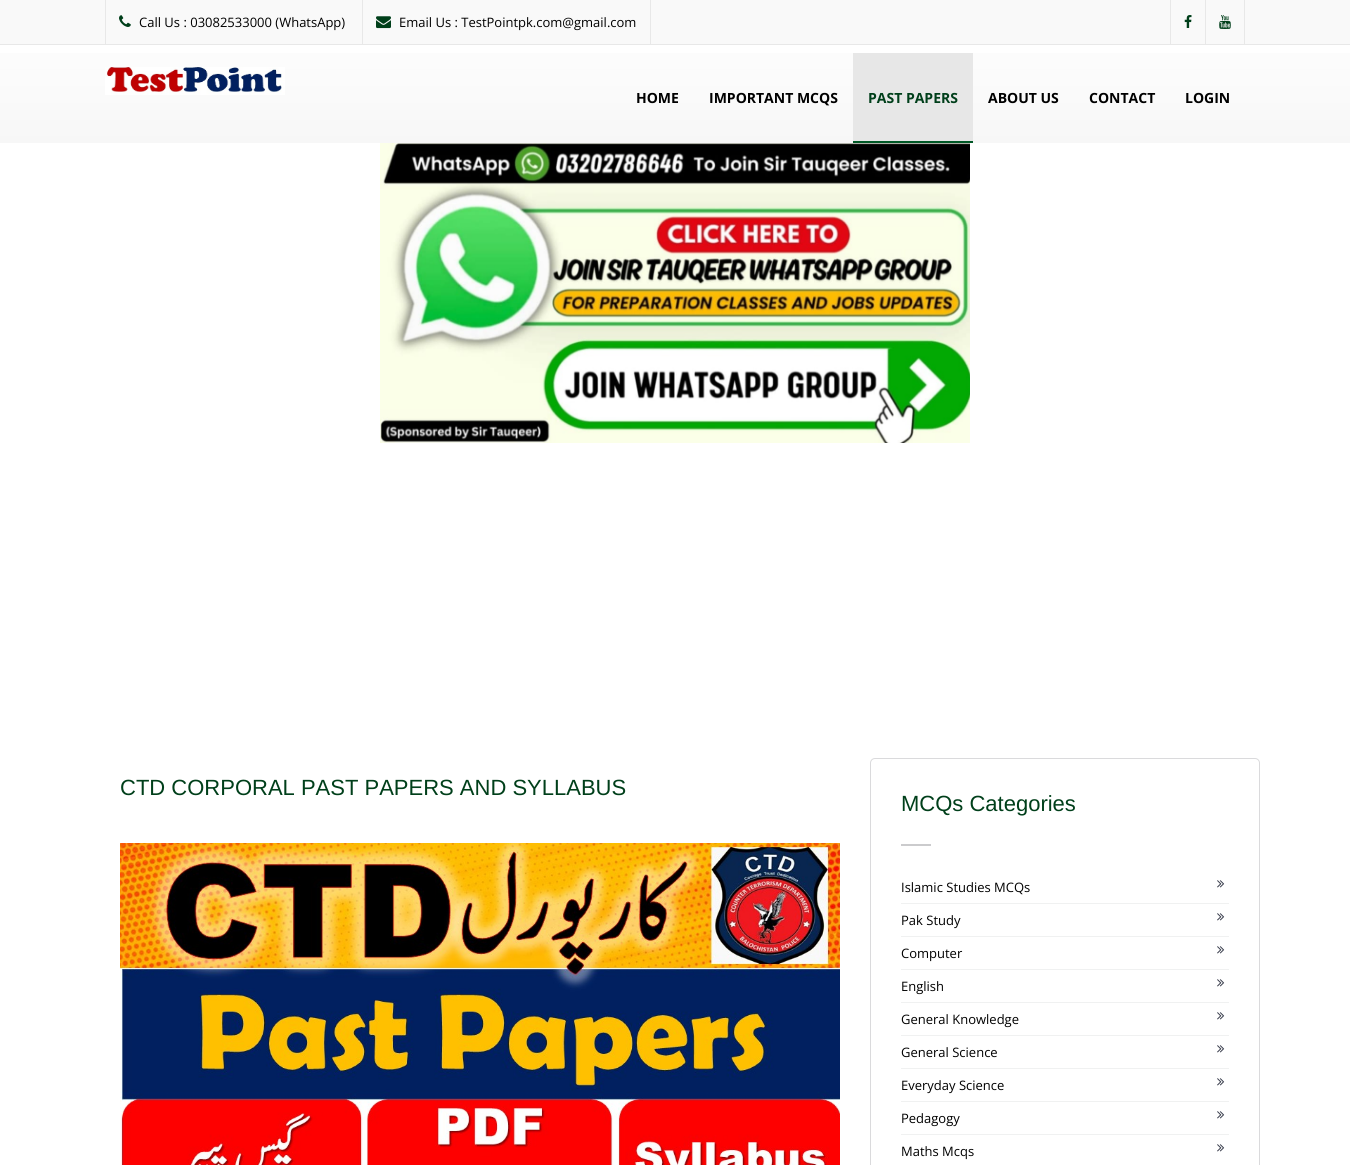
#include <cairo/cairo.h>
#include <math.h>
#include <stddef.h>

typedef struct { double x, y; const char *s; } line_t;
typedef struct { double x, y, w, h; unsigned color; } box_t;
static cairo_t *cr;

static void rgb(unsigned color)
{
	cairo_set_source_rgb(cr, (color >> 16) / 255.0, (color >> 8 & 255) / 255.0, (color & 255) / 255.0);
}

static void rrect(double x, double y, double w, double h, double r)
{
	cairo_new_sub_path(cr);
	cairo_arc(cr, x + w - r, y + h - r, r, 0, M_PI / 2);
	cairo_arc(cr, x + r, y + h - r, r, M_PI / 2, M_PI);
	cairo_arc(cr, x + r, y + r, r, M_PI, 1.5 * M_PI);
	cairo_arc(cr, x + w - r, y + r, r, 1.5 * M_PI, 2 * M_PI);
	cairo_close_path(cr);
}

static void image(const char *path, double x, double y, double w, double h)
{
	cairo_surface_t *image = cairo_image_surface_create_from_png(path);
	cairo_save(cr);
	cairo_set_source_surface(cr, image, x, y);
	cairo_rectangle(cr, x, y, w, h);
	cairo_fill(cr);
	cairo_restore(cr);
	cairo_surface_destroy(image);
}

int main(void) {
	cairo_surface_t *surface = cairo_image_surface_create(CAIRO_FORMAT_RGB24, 1350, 1165);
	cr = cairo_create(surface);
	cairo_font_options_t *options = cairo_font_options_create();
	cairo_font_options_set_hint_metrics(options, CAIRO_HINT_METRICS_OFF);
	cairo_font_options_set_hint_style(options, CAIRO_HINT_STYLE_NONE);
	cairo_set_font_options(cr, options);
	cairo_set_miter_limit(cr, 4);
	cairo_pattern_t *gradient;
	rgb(0xffffff);
	cairo_paint(cr);
	{
		static const box_t items[] = {
			{0, 0, 1350, 44, 0xf9f9f9},
			{0, 44, 1350, 1, 0xe8e8e8},
			{105, 0, 1, 44, 0xe8e8e8},
		};
		for (size_t i = 0; i < sizeof items / sizeof *items; i++) {
			rgb(items[i].color);
			cairo_rectangle(cr, items[i].x, items[i].y, items[i].w, items[i].h);
			cairo_fill(cr);
		}
	}
	image("img/1.png", 119, 15, 12, 12);
	cairo_rectangle(cr, 650, 0, 1, 44);
	cairo_fill(cr);
	cairo_rectangle(cr, 362, 0, 1, 44);
	cairo_fill(cr);
	image("img/2.png", 376, 16, 15, 13);
	cairo_rectangle(cr, 1170, 0, 1, 44);
	cairo_fill(cr);
	image("img/3.png", 1184, 15, 8, 13);
	cairo_rectangle(cr, 1244, 0, 1, 44);
	cairo_fill(cr);
	cairo_rectangle(cr, 1205, 0, 1, 44);
	cairo_fill(cr);
	image("img/4.png", 1219, 15, 12, 14);
	gradient = cairo_pattern_create_linear(675, 45, 675, 143);
	cairo_pattern_add_color_stop_rgba(gradient, 0, 0.992, 0.992, 0.992, 1);
	cairo_pattern_add_color_stop_rgba(gradient, 1, 0.969, 0.969, 0.969, 1);
	cairo_set_source(cr, gradient);
	cairo_pattern_destroy(gradient);
	cairo_rectangle(cr, 0, 53, 1350, 90);
	cairo_fill(cr);
	image("img/5.png", 105, 67, 180, 28);
	rgb(0x005826);
	cairo_rectangle(cr, 853, 141, 120, 2);
	cairo_fill(cr);
	rgb(0xe7e7e7);
	cairo_rectangle(cr, 853, 53, 120, 88);
	cairo_fill(cr);
	image("img/6.png", 380, 143, 590, 300);
	image("img/7.png", 120, 843, 720, 322);
	rrect(870.5, 758.5, 389, 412, 4.5);
	rgb(0xdadadc);
	cairo_set_line_width(cr, 1);
	cairo_stroke(cr);
	rgb(0xcbcbcd);
	cairo_rectangle(cr, 901, 844, 30, 2);
	cairo_fill(cr);
	rgb(0xf0f1f1);
	cairo_rectangle(cr, 901, 903, 328, 1);
	cairo_fill(cr);
	image("img/8.png", 1217, 880, 8, 8);
	cairo_rectangle(cr, 901, 936, 328, 1);
	cairo_fill(cr);
	image("img/8.png", 1217, 913, 8, 8);
	cairo_rectangle(cr, 901, 969, 328, 1);
	cairo_fill(cr);
	image("img/8.png", 1217, 946, 8, 8);
	cairo_rectangle(cr, 901, 1002, 328, 1);
	cairo_fill(cr);
	image("img/8.png", 1217, 979, 8, 8);
	cairo_rectangle(cr, 901, 1035, 328, 1);
	cairo_fill(cr);
	image("img/8.png", 1217, 1012, 8, 8);
	cairo_rectangle(cr, 901, 1068, 328, 1);
	cairo_fill(cr);
	image("img/8.png", 1217, 1045, 8, 8);
	cairo_rectangle(cr, 901, 1101, 328, 1);
	cairo_fill(cr);
	image("img/8.png", 1217, 1078, 8, 8);
	cairo_rectangle(cr, 901, 1134, 328, 1);
	cairo_fill(cr);
	image("img/8.png", 1217, 1111, 8, 8);
	image("img/8.png", 1217, 1144, 8, 8);
	cairo_select_font_face(cr, "Open Sans", CAIRO_FONT_SLANT_NORMAL, CAIRO_FONT_WEIGHT_NORMAL);
	cairo_set_font_size(cr, 13);
	rgb(0x000000);
	cairo_move_to(cr, 139, 27);
	cairo_show_text(cr, "Call Us : 03082533000 (WhatsApp)");
	cairo_move_to(cr, 399, 27);
	cairo_show_text(cr, "Email Us : TestPointpk.com@gmail.com");
	cairo_select_font_face(cr, "Open Sans", CAIRO_FONT_SLANT_NORMAL, CAIRO_FONT_WEIGHT_BOLD);
	cairo_set_font_size(cr, 14);
	cairo_move_to(cr, 636, 103);
	cairo_show_text(cr, "HOME");
	cairo_move_to(cr, 709, 103);
	cairo_show_text(cr, "IMPORTANT MCQS");
	rgb(0x003f1a);
	cairo_move_to(cr, 868, 103);
	cairo_show_text(cr, "PAST PAPERS");
	rgb(0x000000);
	{
		static const line_t items[] = {
			{988, 103, "ABOUT US"},
			{1089, 103, "CONTACT"},
			{1185, 103, "LOGIN"},
		};
		for (size_t i = 0; i < sizeof items / sizeof *items; i++) {
			cairo_move_to(cr, items[i].x, items[i].y);
			cairo_show_text(cr, items[i].s);
		}
	}
	cairo_select_font_face(cr, "Liberation Sans", CAIRO_FONT_SLANT_NORMAL, CAIRO_FONT_WEIGHT_NORMAL);
	cairo_set_font_size(cr, 22);
	rgb(0x003f1a);
	cairo_move_to(cr, 120, 795);
	cairo_show_text(cr, "CTD CORPORAL PAST PAPERS AND SYLLABUS");
	cairo_move_to(cr, 901, 811);
	cairo_show_text(cr, "MCQs Categories");
	cairo_select_font_face(cr, "Open Sans", CAIRO_FONT_SLANT_NORMAL, CAIRO_FONT_WEIGHT_NORMAL);
	cairo_set_font_size(cr, 13);
	rgb(0x000000);
	{
		static const line_t items[] = {
			{901, 892, "Islamic Studies MCQs"},
			{901, 925, "Pak Study"},
			{901, 958, "Computer"},
			{901, 991, "English"},
			{901, 1024, "General Knowledge"},
			{901, 1057, "General Science"},
			{901, 1090, "Everyday Science"},
			{901, 1123, "Pedagogy"},
			{901, 1156, "Maths Mcqs"},
		};
		for (size_t i = 0; i < sizeof items / sizeof *items; i++) {
			cairo_move_to(cr, items[i].x, items[i].y);
			cairo_show_text(cr, items[i].s);
		}
	}
	cairo_surface_write_to_png(surface, "page.png");
	cairo_font_options_destroy(options);
	cairo_destroy(cr);
	cairo_surface_destroy(surface);
	return 0;
}
